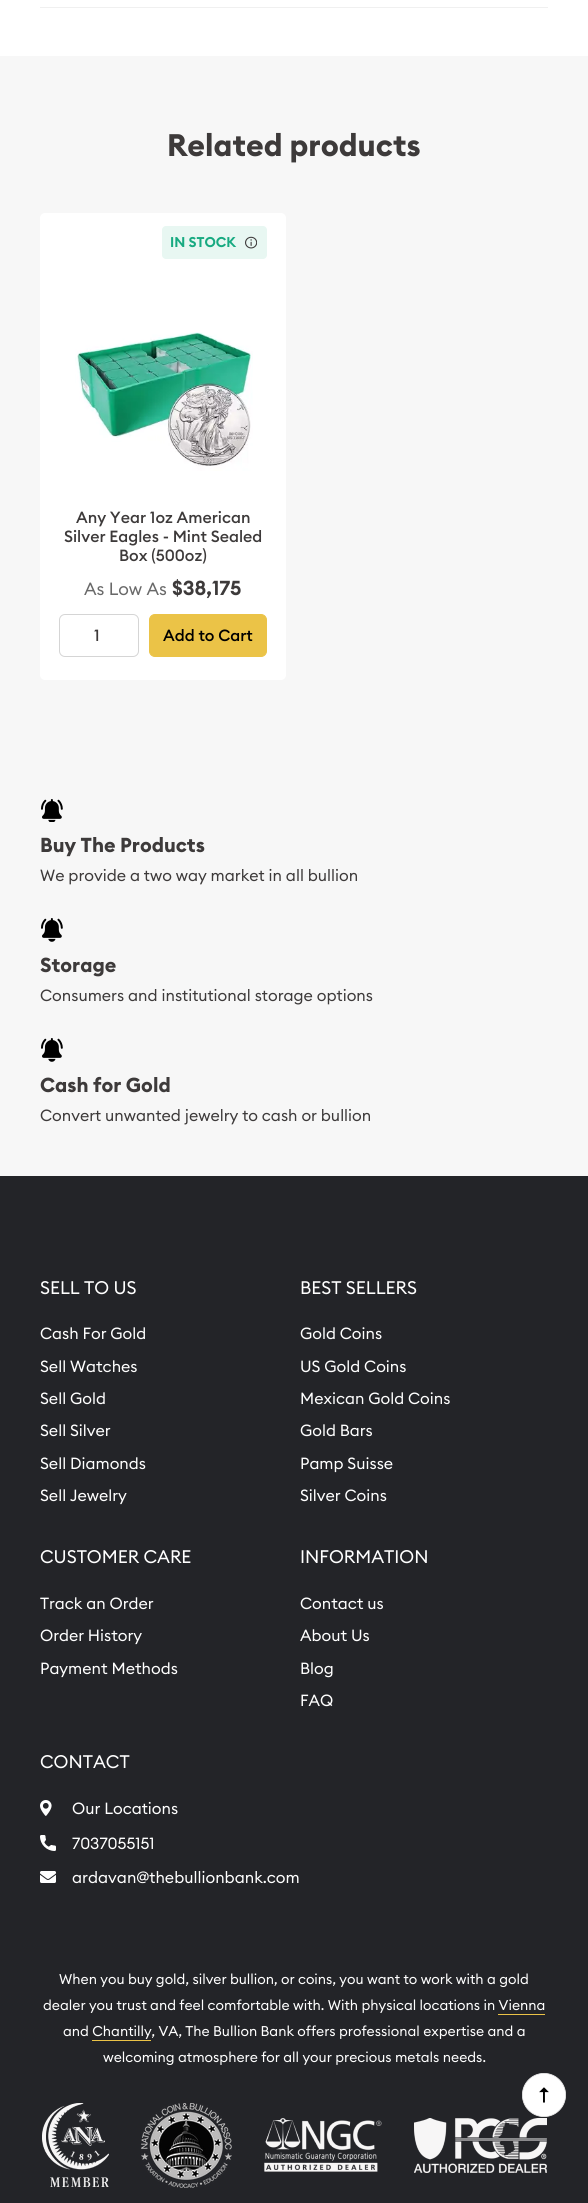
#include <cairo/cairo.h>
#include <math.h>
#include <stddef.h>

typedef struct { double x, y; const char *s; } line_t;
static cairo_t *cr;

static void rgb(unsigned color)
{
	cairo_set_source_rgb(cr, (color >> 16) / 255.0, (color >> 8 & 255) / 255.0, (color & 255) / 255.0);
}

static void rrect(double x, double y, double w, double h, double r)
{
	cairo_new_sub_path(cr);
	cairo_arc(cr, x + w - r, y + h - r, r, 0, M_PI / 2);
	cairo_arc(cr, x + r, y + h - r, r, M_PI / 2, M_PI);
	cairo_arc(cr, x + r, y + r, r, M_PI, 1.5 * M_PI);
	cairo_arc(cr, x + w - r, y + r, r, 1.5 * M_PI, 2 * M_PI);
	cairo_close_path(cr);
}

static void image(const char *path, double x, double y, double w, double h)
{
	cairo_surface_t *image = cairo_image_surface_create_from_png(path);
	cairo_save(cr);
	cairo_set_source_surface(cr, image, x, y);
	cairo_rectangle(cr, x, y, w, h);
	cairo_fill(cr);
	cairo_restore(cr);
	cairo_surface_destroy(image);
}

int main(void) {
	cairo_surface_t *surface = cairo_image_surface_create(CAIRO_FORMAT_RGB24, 588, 2203);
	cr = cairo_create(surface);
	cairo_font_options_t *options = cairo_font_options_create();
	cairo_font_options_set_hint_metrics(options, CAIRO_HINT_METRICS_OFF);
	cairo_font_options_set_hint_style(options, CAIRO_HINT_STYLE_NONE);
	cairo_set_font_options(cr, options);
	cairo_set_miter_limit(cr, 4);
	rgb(0xf7f7f7);
	cairo_paint(cr);
	rgb(0xffffff);
	cairo_rectangle(cr, 0, 0, 588, 56);
	cairo_fill(cr);
	rgb(0xf0f0f0);
	cairo_rectangle(cr, 40, 7, 508, 1);
	cairo_fill(cr);
	rgb(0xffffff);
	rrect(40, 213, 246, 467, 5);
	cairo_fill(cr);
	rgb(0xe8f7f2);
	rrect(162, 226, 105, 33, 4);
	cairo_fill(cr);
	image("img/1.png", 245, 236, 12, 13);
	image("img/2.png", 75, 332, 178, 139);
	rrect(59.5, 614.5, 79, 42, 5.5);
	rgb(0xd5d5d5);
	cairo_set_line_width(cr, 1);
	cairo_stroke(cr);
	rgb(0xebc347);
	rrect(149.5, 614.5, 117, 42, 5.5);
	cairo_fill_preserve(cr);
	cairo_stroke(cr);
	image("img/3.png", 41, 799, 22, 23);
	image("img/4.png", 41, 918, 22, 24);
	image("img/4.png", 41, 1038, 22, 24);
	rgb(0x232428);
	cairo_rectangle(cr, 0, 1176, 588, 1027);
	cairo_fill(cr);
	image("img/5.png", 40, 1800, 12, 16);
	image("img/6.png", 40, 1835, 16, 16);
	image("img/7.png", 40, 1871, 16, 12);
	rgb(0xebc347);
	cairo_rectangle(cr, 498, 2014, 47, 1);
	cairo_fill(cr);
	cairo_rectangle(cr, 92, 2040, 59, 1);
	cairo_fill(cr);
	image("img/8.png", 42, 2103, 67, 84);
	image("img/9.png", 141, 2103, 91, 85);
	image("img/10.png", 264, 2118, 118, 54);
	image("img/11.png", 414, 2118, 133, 55);
	rgb(0xffffff);
	cairo_arc(cr, 544, 2095, 21.6, 0, 2 * M_PI);
	cairo_fill_preserve(cr);
	rgb(0xeeeeee);
	cairo_set_line_width(cr, 0.8);
	cairo_stroke(cr);
	image("img/12.png", 539, 2087, 10, 16);
	cairo_select_font_face(cr, "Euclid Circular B", CAIRO_FONT_SLANT_NORMAL, CAIRO_FONT_WEIGHT_BOLD);
	cairo_set_font_size(cr, 30.75);
	rgb(0x3d3a3a);
	cairo_move_to(cr, 167, 156);
	cairo_show_text(cr, "Related products");
	cairo_select_font_face(cr, "Euclid Circular B SemiBold", CAIRO_FONT_SLANT_NORMAL, CAIRO_FONT_WEIGHT_NORMAL);
	cairo_set_font_size(cr, 14);
	rgb(0x17aa81);
	cairo_move_to(cr, 170, 247);
	cairo_show_text(cr, "IN STOCK");
	cairo_select_font_face(cr, "Euclid Circular B Medium", CAIRO_FONT_SLANT_NORMAL, CAIRO_FONT_WEIGHT_NORMAL);
	cairo_set_font_size(cr, 16);
	rgb(0x3d3a3a);
	{
		static const line_t items[] = {
			{76, 523, "Any Year 1oz American"},
			{64, 542, "Silver Eagles - Mint Sealed"},
			{119, 561, "Box (500oz)"},
		};
		for (size_t i = 0; i < sizeof items / sizeof *items; i++) {
			cairo_move_to(cr, items[i].x, items[i].y);
			cairo_show_text(cr, items[i].s);
		}
	}
	cairo_select_font_face(cr, "Euclid Circular B", CAIRO_FONT_SLANT_NORMAL, CAIRO_FONT_WEIGHT_NORMAL);
	cairo_set_font_size(cr, 17.5);
	rgb(0x696969);
	cairo_move_to(cr, 84, 595);
	cairo_show_text(cr, "As Low As");
	cairo_select_font_face(cr, "Euclid Circular B SemiBold", CAIRO_FONT_SLANT_NORMAL, CAIRO_FONT_WEIGHT_NORMAL);
	cairo_set_font_size(cr, 20);
	rgb(0x3d3a3a);
	cairo_move_to(cr, 172, 595);
	cairo_show_text(cr, "$38,175");
	cairo_select_font_face(cr, "Euclid Circular B Medium", CAIRO_FONT_SLANT_NORMAL, CAIRO_FONT_WEIGHT_NORMAL);
	cairo_set_font_size(cr, 16);
	cairo_move_to(cr, 94, 641);
	cairo_show_text(cr, "1");
	rgb(0x000000);
	cairo_move_to(cr, 163, 641);
	cairo_show_text(cr, "Add to Cart");
	cairo_select_font_face(cr, "Euclid Circular B", CAIRO_FONT_SLANT_NORMAL, CAIRO_FONT_WEIGHT_BOLD);
	cairo_set_font_size(cr, 20);
	rgb(0x3d3a3a);
	cairo_move_to(cr, 40, 852);
	cairo_show_text(cr, "Buy The Products");
	cairo_select_font_face(cr, "Euclid Circular B", CAIRO_FONT_SLANT_NORMAL, CAIRO_FONT_WEIGHT_NORMAL);
	cairo_set_font_size(cr, 16);
	cairo_move_to(cr, 40, 881);
	cairo_show_text(cr, "We provide a two way market in all bullion");
	cairo_select_font_face(cr, "Euclid Circular B", CAIRO_FONT_SLANT_NORMAL, CAIRO_FONT_WEIGHT_BOLD);
	cairo_set_font_size(cr, 20);
	cairo_move_to(cr, 40, 972);
	cairo_show_text(cr, "Storage");
	cairo_select_font_face(cr, "Euclid Circular B", CAIRO_FONT_SLANT_NORMAL, CAIRO_FONT_WEIGHT_NORMAL);
	cairo_set_font_size(cr, 16);
	cairo_move_to(cr, 40, 1001);
	cairo_show_text(cr, "Consumers and institutional storage options");
	cairo_select_font_face(cr, "Euclid Circular B", CAIRO_FONT_SLANT_NORMAL, CAIRO_FONT_WEIGHT_BOLD);
	cairo_set_font_size(cr, 20);
	cairo_move_to(cr, 40, 1092);
	cairo_show_text(cr, "Cash for Gold");
	cairo_select_font_face(cr, "Euclid Circular B", CAIRO_FONT_SLANT_NORMAL, CAIRO_FONT_WEIGHT_NORMAL);
	cairo_set_font_size(cr, 16);
	cairo_move_to(cr, 40, 1121);
	cairo_show_text(cr, "Convert unwanted jewelry to cash or bullion");
	cairo_set_font_size(cr, 18);
	rgb(0xffffff);
	cairo_move_to(cr, 40, 1294);
	cairo_show_text(cr, "SELL TO US");
	cairo_select_font_face(cr, "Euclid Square", CAIRO_FONT_SLANT_NORMAL, CAIRO_FONT_WEIGHT_NORMAL);
	cairo_set_font_size(cr, 16);
	{
		static const line_t items[] = {
			{40, 1339, "Cash For Gold"},
			{40, 1372, "Sell Watches"},
			{40, 1404, "Sell Gold"},
			{40, 1436, "Sell Silver"},
			{40, 1469, "Sell Diamonds"},
			{40, 1501, "Sell Jewelry"},
		};
		for (size_t i = 0; i < sizeof items / sizeof *items; i++) {
			cairo_move_to(cr, items[i].x, items[i].y);
			cairo_show_text(cr, items[i].s);
		}
	}
	cairo_select_font_face(cr, "Euclid Circular B", CAIRO_FONT_SLANT_NORMAL, CAIRO_FONT_WEIGHT_NORMAL);
	cairo_set_font_size(cr, 18);
	cairo_move_to(cr, 300, 1294);
	cairo_show_text(cr, "BEST SELLERS");
	cairo_select_font_face(cr, "Euclid Square", CAIRO_FONT_SLANT_NORMAL, CAIRO_FONT_WEIGHT_NORMAL);
	cairo_set_font_size(cr, 16);
	{
		static const line_t items[] = {
			{300, 1339, "Gold Coins"},
			{300, 1372, "US Gold Coins"},
			{300, 1404, "Mexican Gold Coins"},
			{300, 1436, "Gold Bars"},
			{300, 1469, "Pamp Suisse"},
			{300, 1501, "Silver Coins"},
		};
		for (size_t i = 0; i < sizeof items / sizeof *items; i++) {
			cairo_move_to(cr, items[i].x, items[i].y);
			cairo_show_text(cr, items[i].s);
		}
	}
	cairo_select_font_face(cr, "Euclid Circular B", CAIRO_FONT_SLANT_NORMAL, CAIRO_FONT_WEIGHT_NORMAL);
	cairo_set_font_size(cr, 18);
	cairo_move_to(cr, 40, 1563);
	cairo_show_text(cr, "CUSTOMER CARE");
	cairo_select_font_face(cr, "Euclid Square", CAIRO_FONT_SLANT_NORMAL, CAIRO_FONT_WEIGHT_NORMAL);
	cairo_set_font_size(cr, 16);
	{
		static const line_t items[] = {
			{40, 1609, "Track an Order"},
			{40, 1641, "Order History"},
			{40, 1674, "Payment Methods"},
		};
		for (size_t i = 0; i < sizeof items / sizeof *items; i++) {
			cairo_move_to(cr, items[i].x, items[i].y);
			cairo_show_text(cr, items[i].s);
		}
	}
	cairo_select_font_face(cr, "Euclid Circular B", CAIRO_FONT_SLANT_NORMAL, CAIRO_FONT_WEIGHT_NORMAL);
	cairo_set_font_size(cr, 18);
	cairo_move_to(cr, 300, 1563);
	cairo_show_text(cr, "INFORMATION");
	cairo_select_font_face(cr, "Euclid Square", CAIRO_FONT_SLANT_NORMAL, CAIRO_FONT_WEIGHT_NORMAL);
	cairo_set_font_size(cr, 16);
	{
		static const line_t items[] = {
			{300, 1609, "Contact us"},
			{300, 1641, "About Us"},
			{300, 1674, "Blog"},
			{300, 1706, "FAQ"},
		};
		for (size_t i = 0; i < sizeof items / sizeof *items; i++) {
			cairo_move_to(cr, items[i].x, items[i].y);
			cairo_show_text(cr, items[i].s);
		}
	}
	cairo_select_font_face(cr, "Euclid Circular B", CAIRO_FONT_SLANT_NORMAL, CAIRO_FONT_WEIGHT_NORMAL);
	cairo_set_font_size(cr, 18);
	cairo_move_to(cr, 40, 1768);
	cairo_show_text(cr, "CONTACT");
	cairo_set_font_size(cr, 16);
	{
		static const line_t items[] = {
			{72, 1814, "Our Locations"},
			{72, 1849, "7037055151"},
			{72, 1883, "ardavan@thebullionbank.com"},
		};
		for (size_t i = 0; i < sizeof items / sizeof *items; i++) {
			cairo_move_to(cr, items[i].x, items[i].y);
			cairo_show_text(cr, items[i].s);
		}
	}
	cairo_set_font_size(cr, 14);
	{
		static const line_t items[] = {
			{59, 1984, "When you buy gold, silver bullion, or coins, you want to work with a gold"},
			{43, 2010, "dealer you trust and feel comfortable with. With physical locations in Vienna"},
			{63, 2036, "and Chantilly, VA, The Bullion Bank offers professional expertise and a"},
			{103, 2062, "welcoming atmosphere for all your precious metals needs."},
		};
		for (size_t i = 0; i < sizeof items / sizeof *items; i++) {
			cairo_move_to(cr, items[i].x, items[i].y);
			cairo_show_text(cr, items[i].s);
		}
	}
	cairo_surface_write_to_png(surface, "page.png");
	cairo_font_options_destroy(options);
	cairo_destroy(cr);
	cairo_surface_destroy(surface);
	return 0;
}
